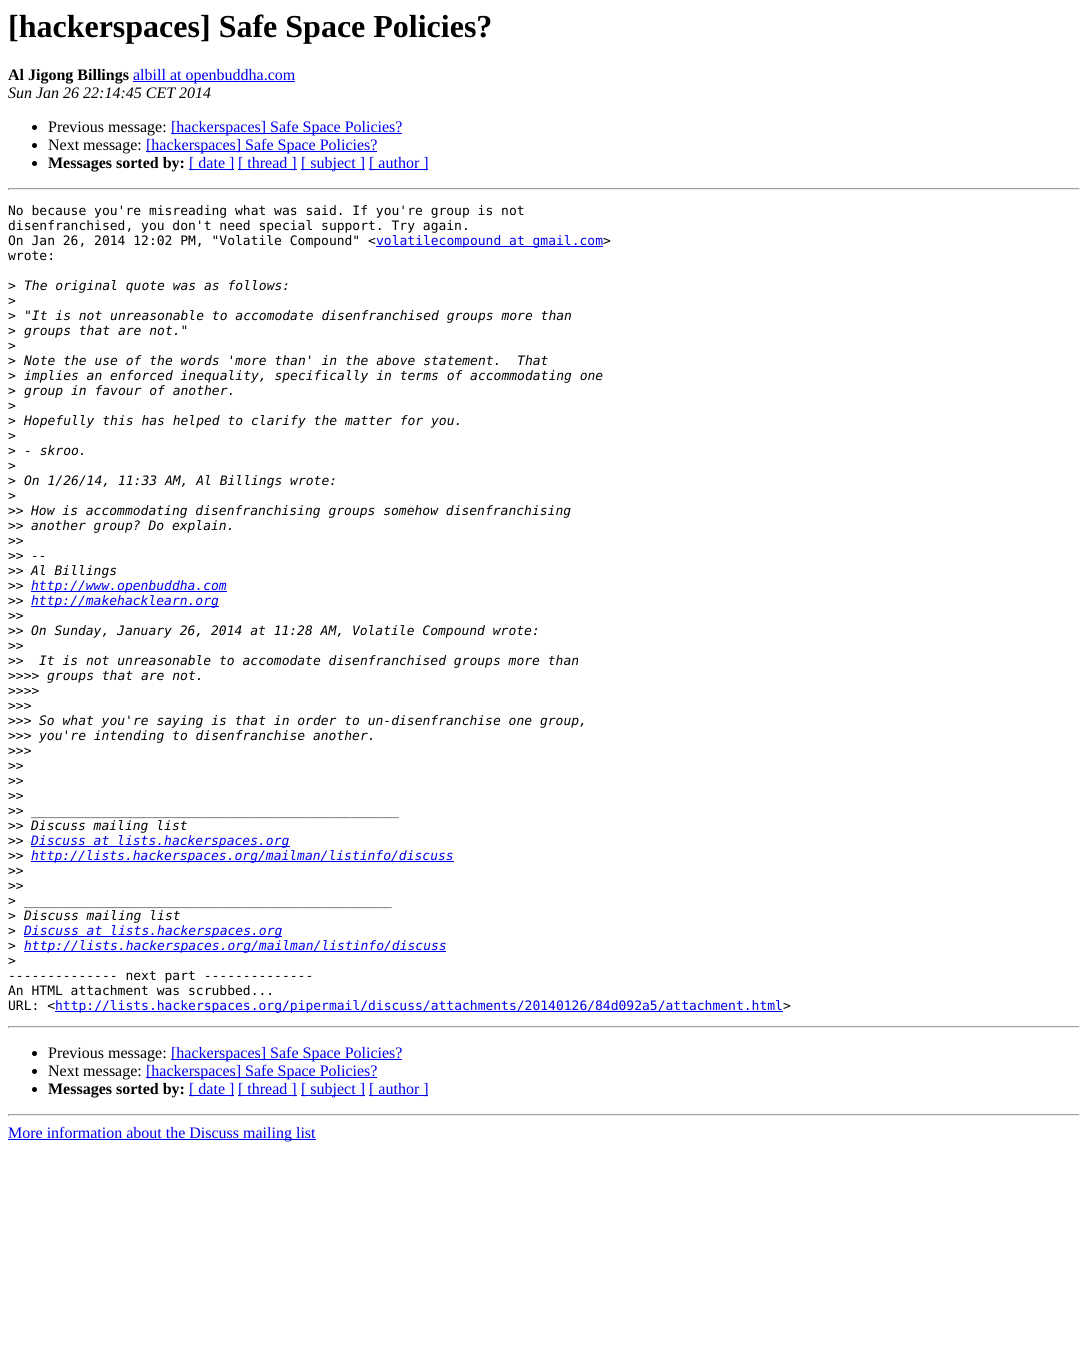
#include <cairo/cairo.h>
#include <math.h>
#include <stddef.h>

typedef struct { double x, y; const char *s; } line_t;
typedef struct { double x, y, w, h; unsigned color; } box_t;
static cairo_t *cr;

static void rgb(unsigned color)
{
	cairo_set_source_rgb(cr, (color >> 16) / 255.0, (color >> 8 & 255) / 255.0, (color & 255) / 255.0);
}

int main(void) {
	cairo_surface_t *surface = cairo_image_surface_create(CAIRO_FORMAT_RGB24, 1088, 1357);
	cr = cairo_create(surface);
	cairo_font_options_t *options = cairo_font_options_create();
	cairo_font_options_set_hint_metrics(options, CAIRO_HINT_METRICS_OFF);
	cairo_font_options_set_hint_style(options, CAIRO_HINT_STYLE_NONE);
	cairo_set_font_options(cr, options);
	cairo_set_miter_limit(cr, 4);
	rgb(0xffffff);
	cairo_paint(cr);
	rgb(0x0000ee);
	cairo_rectangle(cr, 133, 81, 162, 1);
	cairo_fill(cr);
	rgb(0x000000);
	cairo_arc(cr, 34.5, 127.5, 2.5, 0, 2 * M_PI);
	cairo_fill(cr);
	rgb(0x0000ee);
	cairo_rectangle(cr, 171, 133, 231, 1);
	cairo_fill(cr);
	rgb(0x000000);
	cairo_arc(cr, 34.5, 145.5, 2.5, 0, 2 * M_PI);
	cairo_fill(cr);
	rgb(0x0000ee);
	cairo_rectangle(cr, 146, 151, 231, 1);
	cairo_fill(cr);
	rgb(0x000000);
	cairo_arc(cr, 34.5, 163.5, 2.5, 0, 2 * M_PI);
	cairo_fill(cr);
	{
		static const box_t items[] = {
			{189, 169, 45, 1, 0x0000ee},
			{238, 169, 59, 1, 0x0000ee},
			{301, 169, 64, 1, 0x0000ee},
			{369, 169, 59, 1, 0x0000ee},
			{8, 188, 1072, 1, 0x9f9f9f},
			{1079, 188, 1, 2, 0xeeeeee},
			{8, 189, 1072, 1, 0xeeeeee},
			{8, 188, 1, 2, 0x9f9f9f},
			{376, 246, 227, 1, 0x0000ee},
			{31, 591, 196, 1, 0x0000ee},
			{31, 606, 188, 1, 0x0000ee},
			{31, 846, 259, 1, 0x0000ee},
			{31, 861, 423, 1, 0x0000ee},
			{24, 936, 258, 1, 0x0000ee},
			{24, 951, 422, 1, 0x0000ee},
			{55, 1011, 728, 1, 0x0000ee},
			{8, 1026, 1072, 1, 0x9f9f9f},
			{1079, 1026, 1, 2, 0xeeeeee},
			{8, 1027, 1072, 1, 0xeeeeee},
			{8, 1026, 1, 2, 0x9f9f9f},
		};
		for (size_t i = 0; i < sizeof items / sizeof *items; i++) {
			rgb(items[i].color);
			cairo_rectangle(cr, items[i].x, items[i].y, items[i].w, items[i].h);
			cairo_fill(cr);
		}
	}
	rgb(0x000000);
	cairo_arc(cr, 34.5, 1053.5, 2.5, 0, 2 * M_PI);
	cairo_fill(cr);
	rgb(0x0000ee);
	cairo_rectangle(cr, 171, 1059, 231, 1);
	cairo_fill(cr);
	rgb(0x000000);
	cairo_arc(cr, 34.5, 1071.5, 2.5, 0, 2 * M_PI);
	cairo_fill(cr);
	rgb(0x0000ee);
	cairo_rectangle(cr, 146, 1077, 231, 1);
	cairo_fill(cr);
	rgb(0x000000);
	cairo_arc(cr, 34.5, 1089.5, 2.5, 0, 2 * M_PI);
	cairo_fill(cr);
	{
		static const box_t items[] = {
			{189, 1095, 45, 1, 0x0000ee},
			{238, 1095, 59, 1, 0x0000ee},
			{301, 1095, 64, 1, 0x0000ee},
			{369, 1095, 59, 1, 0x0000ee},
			{8, 1114, 1072, 1, 0x9f9f9f},
			{1079, 1114, 1, 2, 0xeeeeee},
			{8, 1115, 1072, 1, 0xeeeeee},
			{8, 1114, 1, 2, 0x9f9f9f},
			{8, 1139, 308, 1, 0x0000ee},
		};
		for (size_t i = 0; i < sizeof items / sizeof *items; i++) {
			rgb(items[i].color);
			cairo_rectangle(cr, items[i].x, items[i].y, items[i].w, items[i].h);
			cairo_fill(cr);
		}
	}
	cairo_select_font_face(cr, "Liberation Serif", CAIRO_FONT_SLANT_NORMAL, CAIRO_FONT_WEIGHT_BOLD);
	cairo_set_font_size(cr, 32);
	rgb(0x000000);
	cairo_move_to(cr, 8, 37);
	cairo_show_text(cr, "[hackerspaces] Safe Space Policies?");
	cairo_set_font_size(cr, 16);
	cairo_move_to(cr, 8, 80);
	cairo_show_text(cr, "Al Jigong Billings");
	cairo_select_font_face(cr, "Liberation Serif", CAIRO_FONT_SLANT_NORMAL, CAIRO_FONT_WEIGHT_NORMAL);
	rgb(0x0000ee);
	cairo_move_to(cr, 133, 80);
	cairo_show_text(cr, "albill at openbuddha.com");
	cairo_select_font_face(cr, "Liberation Serif", CAIRO_FONT_SLANT_ITALIC, CAIRO_FONT_WEIGHT_NORMAL);
	rgb(0x000000);
	cairo_move_to(cr, 8, 98);
	cairo_show_text(cr, "Sun Jan 26 22:14:45 CET 2014");
	cairo_select_font_face(cr, "Liberation Serif", CAIRO_FONT_SLANT_NORMAL, CAIRO_FONT_WEIGHT_NORMAL);
	cairo_move_to(cr, 48, 132);
	cairo_show_text(cr, "Previous message:");
	rgb(0x0000ee);
	cairo_move_to(cr, 171, 132);
	cairo_show_text(cr, "[hackerspaces] Safe Space Policies?");
	rgb(0x000000);
	cairo_move_to(cr, 48, 150);
	cairo_show_text(cr, "Next message:");
	rgb(0x0000ee);
	cairo_move_to(cr, 146, 150);
	cairo_show_text(cr, "[hackerspaces] Safe Space Policies?");
	cairo_select_font_face(cr, "Liberation Serif", CAIRO_FONT_SLANT_NORMAL, CAIRO_FONT_WEIGHT_BOLD);
	rgb(0x000000);
	cairo_move_to(cr, 48, 168);
	cairo_show_text(cr, "Messages sorted by:");
	cairo_select_font_face(cr, "Liberation Serif", CAIRO_FONT_SLANT_NORMAL, CAIRO_FONT_WEIGHT_NORMAL);
	rgb(0x0000ee);
	{
		static const line_t items[] = {
			{189, 168, "[ date ]"},
			{238, 168, "[ thread ]"},
			{301, 168, "[ subject ]"},
			{369, 168, "[ author ]"},
		};
		for (size_t i = 0; i < sizeof items / sizeof *items; i++) {
			cairo_move_to(cr, items[i].x, items[i].y);
			cairo_show_text(cr, items[i].s);
		}
	}
	cairo_select_font_face(cr, "DejaVu Sans Mono", CAIRO_FONT_SLANT_NORMAL, CAIRO_FONT_WEIGHT_NORMAL);
	cairo_set_font_size(cr, 13);
	rgb(0x000000);
	{
		static const line_t items[] = {
			{8, 215, "No because you're misreading what was said. If you're group is not"},
			{8, 230, "disenfranchised, you don't need special support. Try again."},
			{8, 245, "On Jan 26, 2014 12:02 PM, \"Volatile Compound\" <"},
		};
		for (size_t i = 0; i < sizeof items / sizeof *items; i++) {
			cairo_move_to(cr, items[i].x, items[i].y);
			cairo_show_text(cr, items[i].s);
		}
	}
	rgb(0x0000ee);
	cairo_move_to(cr, 376, 245);
	cairo_show_text(cr, "volatilecompound at gmail.com");
	rgb(0x000000);
	{
		static const line_t items[] = {
			{603, 245, ">"},
			{8, 260, "wrote:"},
			{8, 290, ">"},
		};
		for (size_t i = 0; i < sizeof items / sizeof *items; i++) {
			cairo_move_to(cr, items[i].x, items[i].y);
			cairo_show_text(cr, items[i].s);
		}
	}
	cairo_select_font_face(cr, "DejaVu Sans Mono", CAIRO_FONT_SLANT_ITALIC, CAIRO_FONT_WEIGHT_NORMAL);
	cairo_move_to(cr, 24, 290);
	cairo_show_text(cr, "The original quote was as follows:");
	cairo_select_font_face(cr, "DejaVu Sans Mono", CAIRO_FONT_SLANT_NORMAL, CAIRO_FONT_WEIGHT_NORMAL);
	cairo_move_to(cr, 8, 305);
	cairo_show_text(cr, ">");
	cairo_move_to(cr, 8, 320);
	cairo_show_text(cr, ">");
	cairo_select_font_face(cr, "DejaVu Sans Mono", CAIRO_FONT_SLANT_ITALIC, CAIRO_FONT_WEIGHT_NORMAL);
	cairo_move_to(cr, 24, 320);
	cairo_show_text(cr, "\"It is not unreasonable to accomodate disenfranchised groups more than");
	cairo_select_font_face(cr, "DejaVu Sans Mono", CAIRO_FONT_SLANT_NORMAL, CAIRO_FONT_WEIGHT_NORMAL);
	cairo_move_to(cr, 8, 335);
	cairo_show_text(cr, ">");
	cairo_select_font_face(cr, "DejaVu Sans Mono", CAIRO_FONT_SLANT_ITALIC, CAIRO_FONT_WEIGHT_NORMAL);
	cairo_move_to(cr, 24, 335);
	cairo_show_text(cr, "groups that are not.\"");
	cairo_select_font_face(cr, "DejaVu Sans Mono", CAIRO_FONT_SLANT_NORMAL, CAIRO_FONT_WEIGHT_NORMAL);
	cairo_move_to(cr, 8, 350);
	cairo_show_text(cr, ">");
	cairo_move_to(cr, 8, 365);
	cairo_show_text(cr, ">");
	cairo_select_font_face(cr, "DejaVu Sans Mono", CAIRO_FONT_SLANT_ITALIC, CAIRO_FONT_WEIGHT_NORMAL);
	cairo_move_to(cr, 24, 365);
	cairo_show_text(cr, "Note the use of the words 'more than' in the above statement.  That");
	cairo_select_font_face(cr, "DejaVu Sans Mono", CAIRO_FONT_SLANT_NORMAL, CAIRO_FONT_WEIGHT_NORMAL);
	cairo_move_to(cr, 8, 380);
	cairo_show_text(cr, ">");
	cairo_select_font_face(cr, "DejaVu Sans Mono", CAIRO_FONT_SLANT_ITALIC, CAIRO_FONT_WEIGHT_NORMAL);
	cairo_move_to(cr, 24, 380);
	cairo_show_text(cr, "implies an enforced inequality, specifically in terms of accommodating one");
	cairo_select_font_face(cr, "DejaVu Sans Mono", CAIRO_FONT_SLANT_NORMAL, CAIRO_FONT_WEIGHT_NORMAL);
	cairo_move_to(cr, 8, 395);
	cairo_show_text(cr, ">");
	cairo_select_font_face(cr, "DejaVu Sans Mono", CAIRO_FONT_SLANT_ITALIC, CAIRO_FONT_WEIGHT_NORMAL);
	cairo_move_to(cr, 24, 395);
	cairo_show_text(cr, "group in favour of another.");
	cairo_select_font_face(cr, "DejaVu Sans Mono", CAIRO_FONT_SLANT_NORMAL, CAIRO_FONT_WEIGHT_NORMAL);
	cairo_move_to(cr, 8, 410);
	cairo_show_text(cr, ">");
	cairo_move_to(cr, 8, 425);
	cairo_show_text(cr, ">");
	cairo_select_font_face(cr, "DejaVu Sans Mono", CAIRO_FONT_SLANT_ITALIC, CAIRO_FONT_WEIGHT_NORMAL);
	cairo_move_to(cr, 24, 425);
	cairo_show_text(cr, "Hopefully this has helped to clarify the matter for you.");
	cairo_select_font_face(cr, "DejaVu Sans Mono", CAIRO_FONT_SLANT_NORMAL, CAIRO_FONT_WEIGHT_NORMAL);
	cairo_move_to(cr, 8, 440);
	cairo_show_text(cr, ">");
	cairo_move_to(cr, 8, 455);
	cairo_show_text(cr, ">");
	cairo_select_font_face(cr, "DejaVu Sans Mono", CAIRO_FONT_SLANT_ITALIC, CAIRO_FONT_WEIGHT_NORMAL);
	cairo_move_to(cr, 24, 455);
	cairo_show_text(cr, "- skroo.");
	cairo_select_font_face(cr, "DejaVu Sans Mono", CAIRO_FONT_SLANT_NORMAL, CAIRO_FONT_WEIGHT_NORMAL);
	cairo_move_to(cr, 8, 470);
	cairo_show_text(cr, ">");
	cairo_move_to(cr, 8, 485);
	cairo_show_text(cr, ">");
	cairo_select_font_face(cr, "DejaVu Sans Mono", CAIRO_FONT_SLANT_ITALIC, CAIRO_FONT_WEIGHT_NORMAL);
	cairo_move_to(cr, 24, 485);
	cairo_show_text(cr, "On 1/26/14, 11:33 AM, Al Billings wrote:");
	cairo_select_font_face(cr, "DejaVu Sans Mono", CAIRO_FONT_SLANT_NORMAL, CAIRO_FONT_WEIGHT_NORMAL);
	cairo_move_to(cr, 8, 500);
	cairo_show_text(cr, ">");
	cairo_move_to(cr, 8, 515);
	cairo_show_text(cr, ">>");
	cairo_select_font_face(cr, "DejaVu Sans Mono", CAIRO_FONT_SLANT_ITALIC, CAIRO_FONT_WEIGHT_NORMAL);
	cairo_move_to(cr, 31, 515);
	cairo_show_text(cr, "How is accommodating disenfranchising groups somehow disenfranchising");
	cairo_select_font_face(cr, "DejaVu Sans Mono", CAIRO_FONT_SLANT_NORMAL, CAIRO_FONT_WEIGHT_NORMAL);
	cairo_move_to(cr, 8, 530);
	cairo_show_text(cr, ">>");
	cairo_select_font_face(cr, "DejaVu Sans Mono", CAIRO_FONT_SLANT_ITALIC, CAIRO_FONT_WEIGHT_NORMAL);
	cairo_move_to(cr, 31, 530);
	cairo_show_text(cr, "another group? Do explain.");
	cairo_select_font_face(cr, "DejaVu Sans Mono", CAIRO_FONT_SLANT_NORMAL, CAIRO_FONT_WEIGHT_NORMAL);
	cairo_move_to(cr, 8, 545);
	cairo_show_text(cr, ">>");
	cairo_move_to(cr, 8, 560);
	cairo_show_text(cr, ">>");
	cairo_select_font_face(cr, "DejaVu Sans Mono", CAIRO_FONT_SLANT_ITALIC, CAIRO_FONT_WEIGHT_NORMAL);
	cairo_move_to(cr, 31, 560);
	cairo_show_text(cr, "--");
	cairo_select_font_face(cr, "DejaVu Sans Mono", CAIRO_FONT_SLANT_NORMAL, CAIRO_FONT_WEIGHT_NORMAL);
	cairo_move_to(cr, 8, 575);
	cairo_show_text(cr, ">>");
	cairo_select_font_face(cr, "DejaVu Sans Mono", CAIRO_FONT_SLANT_ITALIC, CAIRO_FONT_WEIGHT_NORMAL);
	cairo_move_to(cr, 31, 575);
	cairo_show_text(cr, "Al Billings");
	cairo_select_font_face(cr, "DejaVu Sans Mono", CAIRO_FONT_SLANT_NORMAL, CAIRO_FONT_WEIGHT_NORMAL);
	cairo_move_to(cr, 8, 590);
	cairo_show_text(cr, ">>");
	cairo_select_font_face(cr, "DejaVu Sans Mono", CAIRO_FONT_SLANT_ITALIC, CAIRO_FONT_WEIGHT_NORMAL);
	rgb(0x0000ee);
	cairo_move_to(cr, 31, 590);
	cairo_show_text(cr, "http://www.openbuddha.com");
	cairo_select_font_face(cr, "DejaVu Sans Mono", CAIRO_FONT_SLANT_NORMAL, CAIRO_FONT_WEIGHT_NORMAL);
	rgb(0x000000);
	cairo_move_to(cr, 8, 605);
	cairo_show_text(cr, ">>");
	cairo_select_font_face(cr, "DejaVu Sans Mono", CAIRO_FONT_SLANT_ITALIC, CAIRO_FONT_WEIGHT_NORMAL);
	rgb(0x0000ee);
	cairo_move_to(cr, 31, 605);
	cairo_show_text(cr, "http://makehacklearn.org");
	cairo_select_font_face(cr, "DejaVu Sans Mono", CAIRO_FONT_SLANT_NORMAL, CAIRO_FONT_WEIGHT_NORMAL);
	rgb(0x000000);
	cairo_move_to(cr, 8, 620);
	cairo_show_text(cr, ">>");
	cairo_move_to(cr, 8, 635);
	cairo_show_text(cr, ">>");
	cairo_select_font_face(cr, "DejaVu Sans Mono", CAIRO_FONT_SLANT_ITALIC, CAIRO_FONT_WEIGHT_NORMAL);
	cairo_move_to(cr, 31, 635);
	cairo_show_text(cr, "On Sunday, January 26, 2014 at 11:28 AM, Volatile Compound wrote:");
	cairo_select_font_face(cr, "DejaVu Sans Mono", CAIRO_FONT_SLANT_NORMAL, CAIRO_FONT_WEIGHT_NORMAL);
	cairo_move_to(cr, 8, 650);
	cairo_show_text(cr, ">>");
	cairo_move_to(cr, 8, 665);
	cairo_show_text(cr, ">>");
	cairo_select_font_face(cr, "DejaVu Sans Mono", CAIRO_FONT_SLANT_ITALIC, CAIRO_FONT_WEIGHT_NORMAL);
	cairo_move_to(cr, 39, 665);
	cairo_show_text(cr, "It is not unreasonable to accomodate disenfranchised groups more than");
	cairo_select_font_face(cr, "DejaVu Sans Mono", CAIRO_FONT_SLANT_NORMAL, CAIRO_FONT_WEIGHT_NORMAL);
	cairo_move_to(cr, 8, 680);
	cairo_show_text(cr, ">>>>");
	cairo_select_font_face(cr, "DejaVu Sans Mono", CAIRO_FONT_SLANT_ITALIC, CAIRO_FONT_WEIGHT_NORMAL);
	cairo_move_to(cr, 47, 680);
	cairo_show_text(cr, "groups that are not.");
	cairo_select_font_face(cr, "DejaVu Sans Mono", CAIRO_FONT_SLANT_NORMAL, CAIRO_FONT_WEIGHT_NORMAL);
	{
		static const line_t items[] = {
			{8, 695, ">>>>"},
			{8, 710, ">>>"},
			{8, 725, ">>>"},
		};
		for (size_t i = 0; i < sizeof items / sizeof *items; i++) {
			cairo_move_to(cr, items[i].x, items[i].y);
			cairo_show_text(cr, items[i].s);
		}
	}
	cairo_select_font_face(cr, "DejaVu Sans Mono", CAIRO_FONT_SLANT_ITALIC, CAIRO_FONT_WEIGHT_NORMAL);
	cairo_move_to(cr, 39, 725);
	cairo_show_text(cr, "So what you're saying is that in order to un-disenfranchise one group,");
	cairo_select_font_face(cr, "DejaVu Sans Mono", CAIRO_FONT_SLANT_NORMAL, CAIRO_FONT_WEIGHT_NORMAL);
	cairo_move_to(cr, 8, 740);
	cairo_show_text(cr, ">>>");
	cairo_select_font_face(cr, "DejaVu Sans Mono", CAIRO_FONT_SLANT_ITALIC, CAIRO_FONT_WEIGHT_NORMAL);
	cairo_move_to(cr, 39, 740);
	cairo_show_text(cr, "you're intending to disenfranchise another.");
	cairo_select_font_face(cr, "DejaVu Sans Mono", CAIRO_FONT_SLANT_NORMAL, CAIRO_FONT_WEIGHT_NORMAL);
	{
		static const line_t items[] = {
			{8, 755, ">>>"},
			{8, 770, ">>"},
			{8, 785, ">>"},
			{8, 800, ">>"},
			{8, 815, ">>"},
		};
		for (size_t i = 0; i < sizeof items / sizeof *items; i++) {
			cairo_move_to(cr, items[i].x, items[i].y);
			cairo_show_text(cr, items[i].s);
		}
	}
	cairo_select_font_face(cr, "DejaVu Sans Mono", CAIRO_FONT_SLANT_ITALIC, CAIRO_FONT_WEIGHT_NORMAL);
	cairo_move_to(cr, 31, 815);
	cairo_show_text(cr, "_______________________________________________");
	cairo_select_font_face(cr, "DejaVu Sans Mono", CAIRO_FONT_SLANT_NORMAL, CAIRO_FONT_WEIGHT_NORMAL);
	cairo_move_to(cr, 8, 830);
	cairo_show_text(cr, ">>");
	cairo_select_font_face(cr, "DejaVu Sans Mono", CAIRO_FONT_SLANT_ITALIC, CAIRO_FONT_WEIGHT_NORMAL);
	cairo_move_to(cr, 31, 830);
	cairo_show_text(cr, "Discuss mailing list");
	cairo_select_font_face(cr, "DejaVu Sans Mono", CAIRO_FONT_SLANT_NORMAL, CAIRO_FONT_WEIGHT_NORMAL);
	cairo_move_to(cr, 8, 845);
	cairo_show_text(cr, ">>");
	cairo_select_font_face(cr, "DejaVu Sans Mono", CAIRO_FONT_SLANT_ITALIC, CAIRO_FONT_WEIGHT_NORMAL);
	rgb(0x0000ee);
	cairo_move_to(cr, 31, 845);
	cairo_show_text(cr, "Discuss at lists.hackerspaces.org");
	cairo_select_font_face(cr, "DejaVu Sans Mono", CAIRO_FONT_SLANT_NORMAL, CAIRO_FONT_WEIGHT_NORMAL);
	rgb(0x000000);
	cairo_move_to(cr, 8, 860);
	cairo_show_text(cr, ">>");
	cairo_select_font_face(cr, "DejaVu Sans Mono", CAIRO_FONT_SLANT_ITALIC, CAIRO_FONT_WEIGHT_NORMAL);
	rgb(0x0000ee);
	cairo_move_to(cr, 31, 860);
	cairo_show_text(cr, "http://lists.hackerspaces.org/mailman/listinfo/discuss");
	cairo_select_font_face(cr, "DejaVu Sans Mono", CAIRO_FONT_SLANT_NORMAL, CAIRO_FONT_WEIGHT_NORMAL);
	rgb(0x000000);
	{
		static const line_t items[] = {
			{8, 875, ">>"},
			{8, 890, ">>"},
			{8, 905, ">"},
		};
		for (size_t i = 0; i < sizeof items / sizeof *items; i++) {
			cairo_move_to(cr, items[i].x, items[i].y);
			cairo_show_text(cr, items[i].s);
		}
	}
	cairo_select_font_face(cr, "DejaVu Sans Mono", CAIRO_FONT_SLANT_ITALIC, CAIRO_FONT_WEIGHT_NORMAL);
	cairo_move_to(cr, 24, 905);
	cairo_show_text(cr, "_______________________________________________");
	cairo_select_font_face(cr, "DejaVu Sans Mono", CAIRO_FONT_SLANT_NORMAL, CAIRO_FONT_WEIGHT_NORMAL);
	cairo_move_to(cr, 8, 920);
	cairo_show_text(cr, ">");
	cairo_select_font_face(cr, "DejaVu Sans Mono", CAIRO_FONT_SLANT_ITALIC, CAIRO_FONT_WEIGHT_NORMAL);
	cairo_move_to(cr, 24, 920);
	cairo_show_text(cr, "Discuss mailing list");
	cairo_select_font_face(cr, "DejaVu Sans Mono", CAIRO_FONT_SLANT_NORMAL, CAIRO_FONT_WEIGHT_NORMAL);
	cairo_move_to(cr, 8, 935);
	cairo_show_text(cr, ">");
	cairo_select_font_face(cr, "DejaVu Sans Mono", CAIRO_FONT_SLANT_ITALIC, CAIRO_FONT_WEIGHT_NORMAL);
	rgb(0x0000ee);
	cairo_move_to(cr, 24, 935);
	cairo_show_text(cr, "Discuss at lists.hackerspaces.org");
	cairo_select_font_face(cr, "DejaVu Sans Mono", CAIRO_FONT_SLANT_NORMAL, CAIRO_FONT_WEIGHT_NORMAL);
	rgb(0x000000);
	cairo_move_to(cr, 8, 950);
	cairo_show_text(cr, ">");
	cairo_select_font_face(cr, "DejaVu Sans Mono", CAIRO_FONT_SLANT_ITALIC, CAIRO_FONT_WEIGHT_NORMAL);
	rgb(0x0000ee);
	cairo_move_to(cr, 24, 950);
	cairo_show_text(cr, "http://lists.hackerspaces.org/mailman/listinfo/discuss");
	cairo_select_font_face(cr, "DejaVu Sans Mono", CAIRO_FONT_SLANT_NORMAL, CAIRO_FONT_WEIGHT_NORMAL);
	rgb(0x000000);
	{
		static const line_t items[] = {
			{8, 965, ">"},
			{8, 980, "-------------- next part --------------"},
			{8, 995, "An HTML attachment was scrubbed..."},
			{8, 1010, "URL: <"},
		};
		for (size_t i = 0; i < sizeof items / sizeof *items; i++) {
			cairo_move_to(cr, items[i].x, items[i].y);
			cairo_show_text(cr, items[i].s);
		}
	}
	rgb(0x0000ee);
	cairo_move_to(cr, 55, 1010);
	cairo_show_text(cr, "http://lists.hackerspaces.org/pipermail/discuss/attachments/20140126/84d092a5/attachment.html");
	rgb(0x000000);
	cairo_move_to(cr, 783, 1010);
	cairo_show_text(cr, ">");
	cairo_select_font_face(cr, "Liberation Serif", CAIRO_FONT_SLANT_NORMAL, CAIRO_FONT_WEIGHT_NORMAL);
	cairo_set_font_size(cr, 16);
	cairo_move_to(cr, 48, 1058);
	cairo_show_text(cr, "Previous message:");
	rgb(0x0000ee);
	cairo_move_to(cr, 171, 1058);
	cairo_show_text(cr, "[hackerspaces] Safe Space Policies?");
	rgb(0x000000);
	cairo_move_to(cr, 48, 1076);
	cairo_show_text(cr, "Next message:");
	rgb(0x0000ee);
	cairo_move_to(cr, 146, 1076);
	cairo_show_text(cr, "[hackerspaces] Safe Space Policies?");
	cairo_select_font_face(cr, "Liberation Serif", CAIRO_FONT_SLANT_NORMAL, CAIRO_FONT_WEIGHT_BOLD);
	rgb(0x000000);
	cairo_move_to(cr, 48, 1094);
	cairo_show_text(cr, "Messages sorted by:");
	cairo_select_font_face(cr, "Liberation Serif", CAIRO_FONT_SLANT_NORMAL, CAIRO_FONT_WEIGHT_NORMAL);
	rgb(0x0000ee);
	{
		static const line_t items[] = {
			{189, 1094, "[ date ]"},
			{238, 1094, "[ thread ]"},
			{301, 1094, "[ subject ]"},
			{369, 1094, "[ author ]"},
			{8, 1138, "More information about the Discuss mailing list"},
		};
		for (size_t i = 0; i < sizeof items / sizeof *items; i++) {
			cairo_move_to(cr, items[i].x, items[i].y);
			cairo_show_text(cr, items[i].s);
		}
	}
	cairo_surface_write_to_png(surface, "page.png");
	cairo_font_options_destroy(options);
	cairo_destroy(cr);
	cairo_surface_destroy(surface);
	return 0;
}
